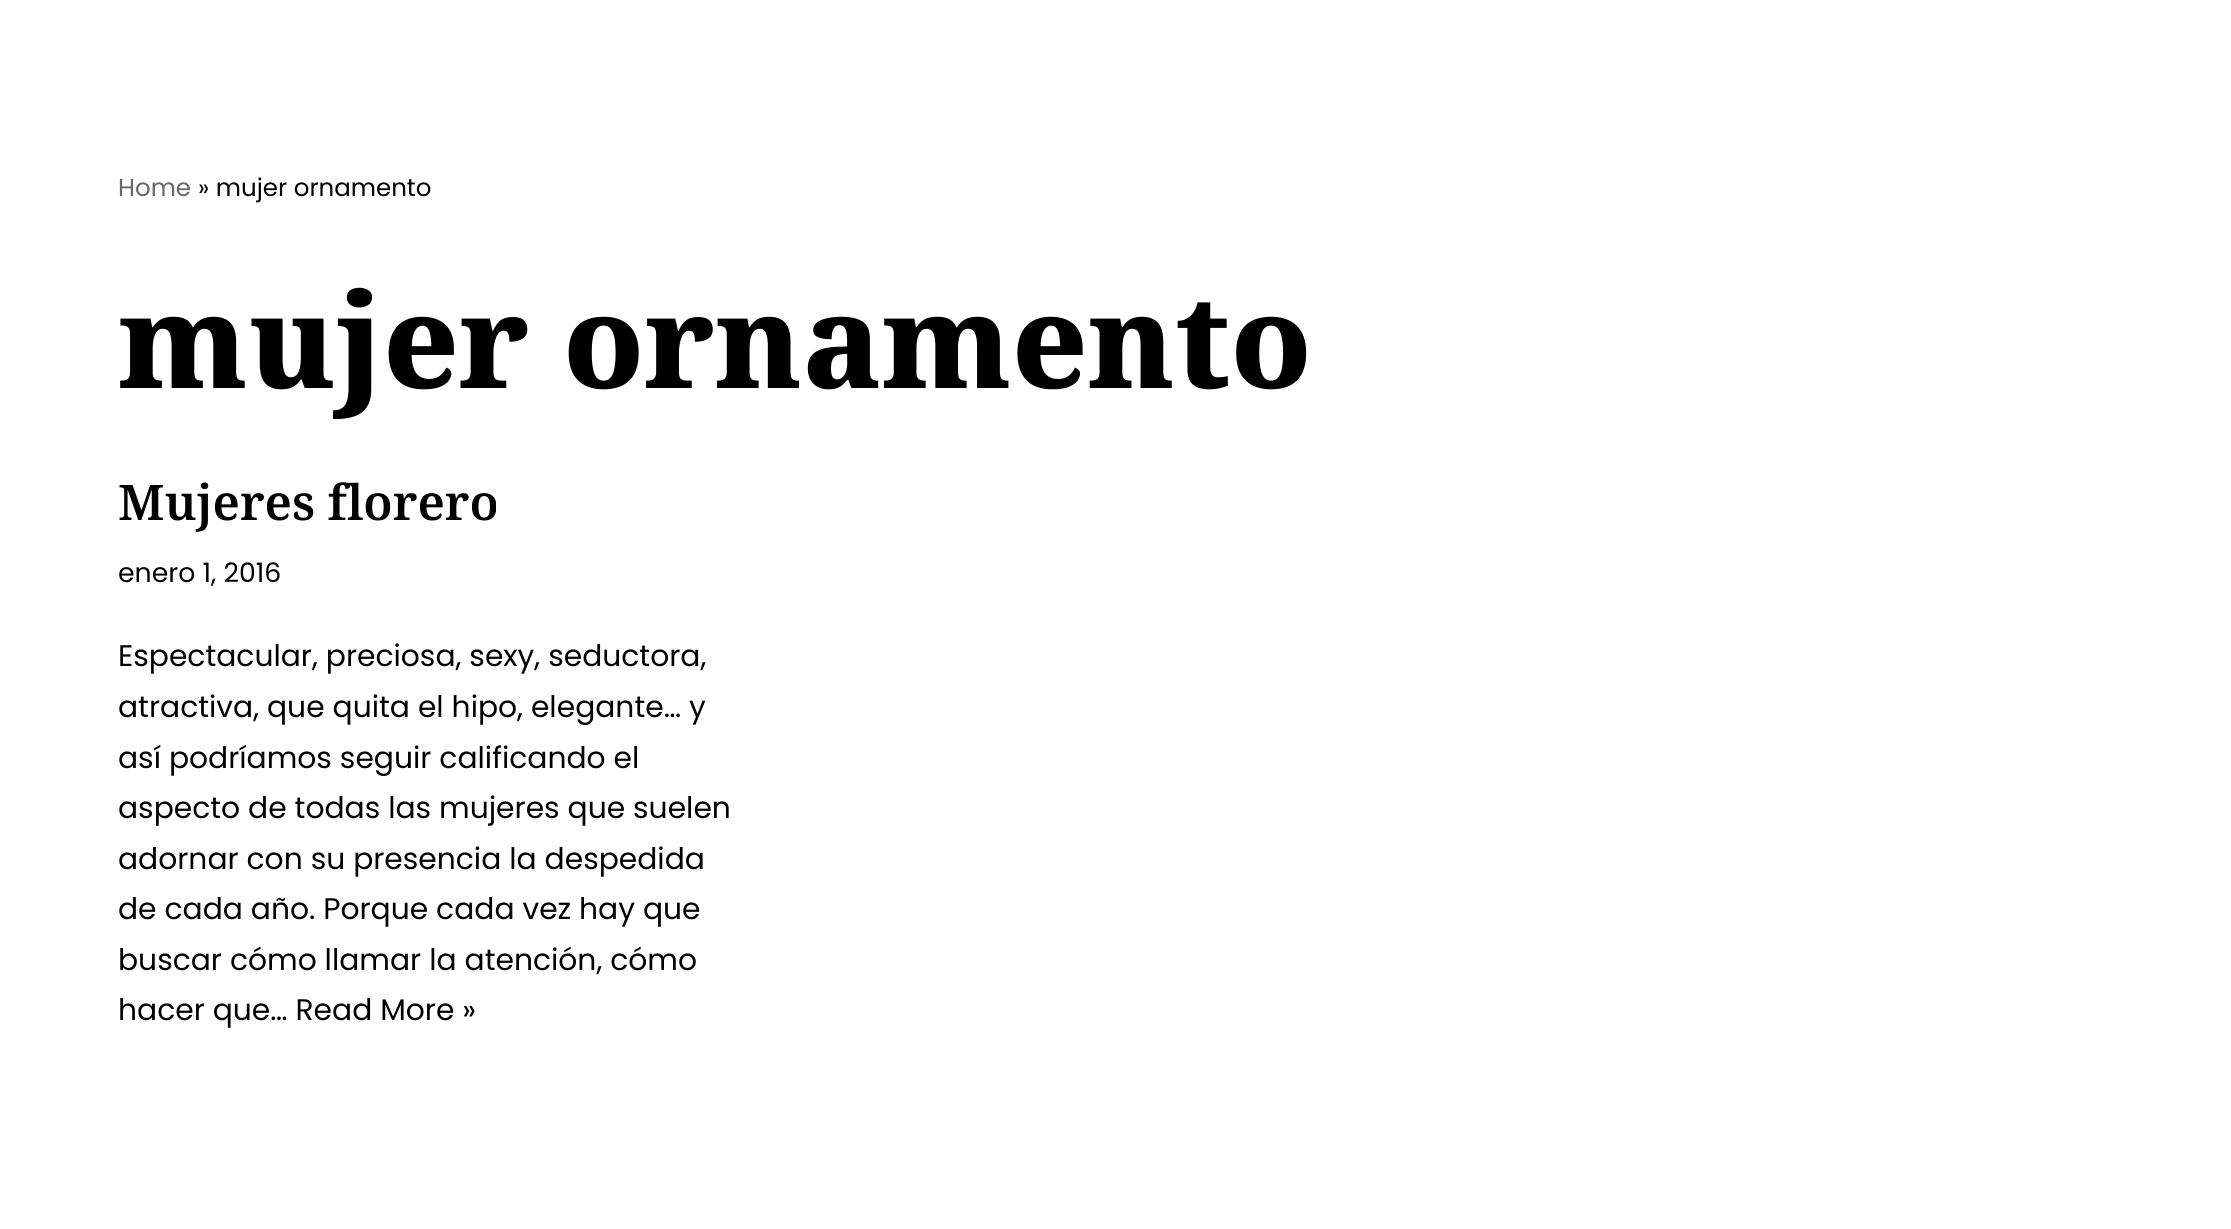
#include <cairo/cairo.h>
#include <math.h>
#include <stddef.h>

typedef struct { double x, y; const char *s; } line_t;
static cairo_t *cr;

static void rgb(unsigned color)
{
	cairo_set_source_rgb(cr, (color >> 16) / 255.0, (color >> 8 & 255) / 255.0, (color & 255) / 255.0);
}

int main(void) {
	cairo_surface_t *surface = cairo_image_surface_create(CAIRO_FORMAT_RGB24, 2231, 1229);
	cr = cairo_create(surface);
	cairo_font_options_t *options = cairo_font_options_create();
	cairo_font_options_set_hint_metrics(options, CAIRO_HINT_METRICS_OFF);
	cairo_font_options_set_hint_style(options, CAIRO_HINT_STYLE_NONE);
	cairo_set_font_options(cr, options);
	cairo_set_miter_limit(cr, 4);
	rgb(0xffffff);
	cairo_paint(cr);
	cairo_select_font_face(cr, "Poppins", CAIRO_FONT_SLANT_NORMAL, CAIRO_FONT_WEIGHT_NORMAL);
	cairo_set_font_size(cr, 24.5);
	rgb(0x676767);
	cairo_move_to(cr, 118, 196);
	cairo_show_text(cr, "Home");
	rgb(0x000000);
	cairo_move_to(cr, 198, 196);
	cairo_show_text(cr, "» mujer ornamento");
	cairo_select_font_face(cr, "Noto Serif ExtraBold", CAIRO_FONT_SLANT_NORMAL, CAIRO_FONT_WEIGHT_NORMAL);
	cairo_set_font_size(cr, 129.5);
	cairo_move_to(cr, 118, 388);
	cairo_show_text(cr, "mujer ornamento");
	cairo_select_font_face(cr, "Noto Serif SemiBold", CAIRO_FONT_SLANT_NORMAL, CAIRO_FONT_WEIGHT_NORMAL);
	cairo_set_font_size(cr, 49);
	cairo_move_to(cr, 118, 520);
	cairo_show_text(cr, "Mujeres florero");
	cairo_select_font_face(cr, "Poppins", CAIRO_FONT_SLANT_NORMAL, CAIRO_FONT_WEIGHT_NORMAL);
	cairo_set_font_size(cr, 26.75);
	cairo_move_to(cr, 118, 582);
	cairo_show_text(cr, "enero 1, 2016");
	cairo_set_font_size(cr, 29.75);
	{
		static const line_t items[] = {
			{118, 666, "Espectacular, preciosa, sexy, seductora,"},
			{118, 717, "atractiva, que quita el hipo, elegante… y"},
			{118, 768, "así podríamos seguir calificando el"},
			{118, 818, "aspecto de todas las mujeres que suelen"},
			{118, 869, "adornar con su presencia la despedida"},
			{118, 919, "de cada año. Porque cada vez hay que"},
			{118, 970, "buscar cómo llamar la atención, cómo"},
			{118, 1020, "hacer que… Read More »"},
		};
		for (size_t i = 0; i < sizeof items / sizeof *items; i++) {
			cairo_move_to(cr, items[i].x, items[i].y);
			cairo_show_text(cr, items[i].s);
		}
	}
	cairo_surface_write_to_png(surface, "page.png");
	cairo_font_options_destroy(options);
	cairo_destroy(cr);
	cairo_surface_destroy(surface);
	return 0;
}
